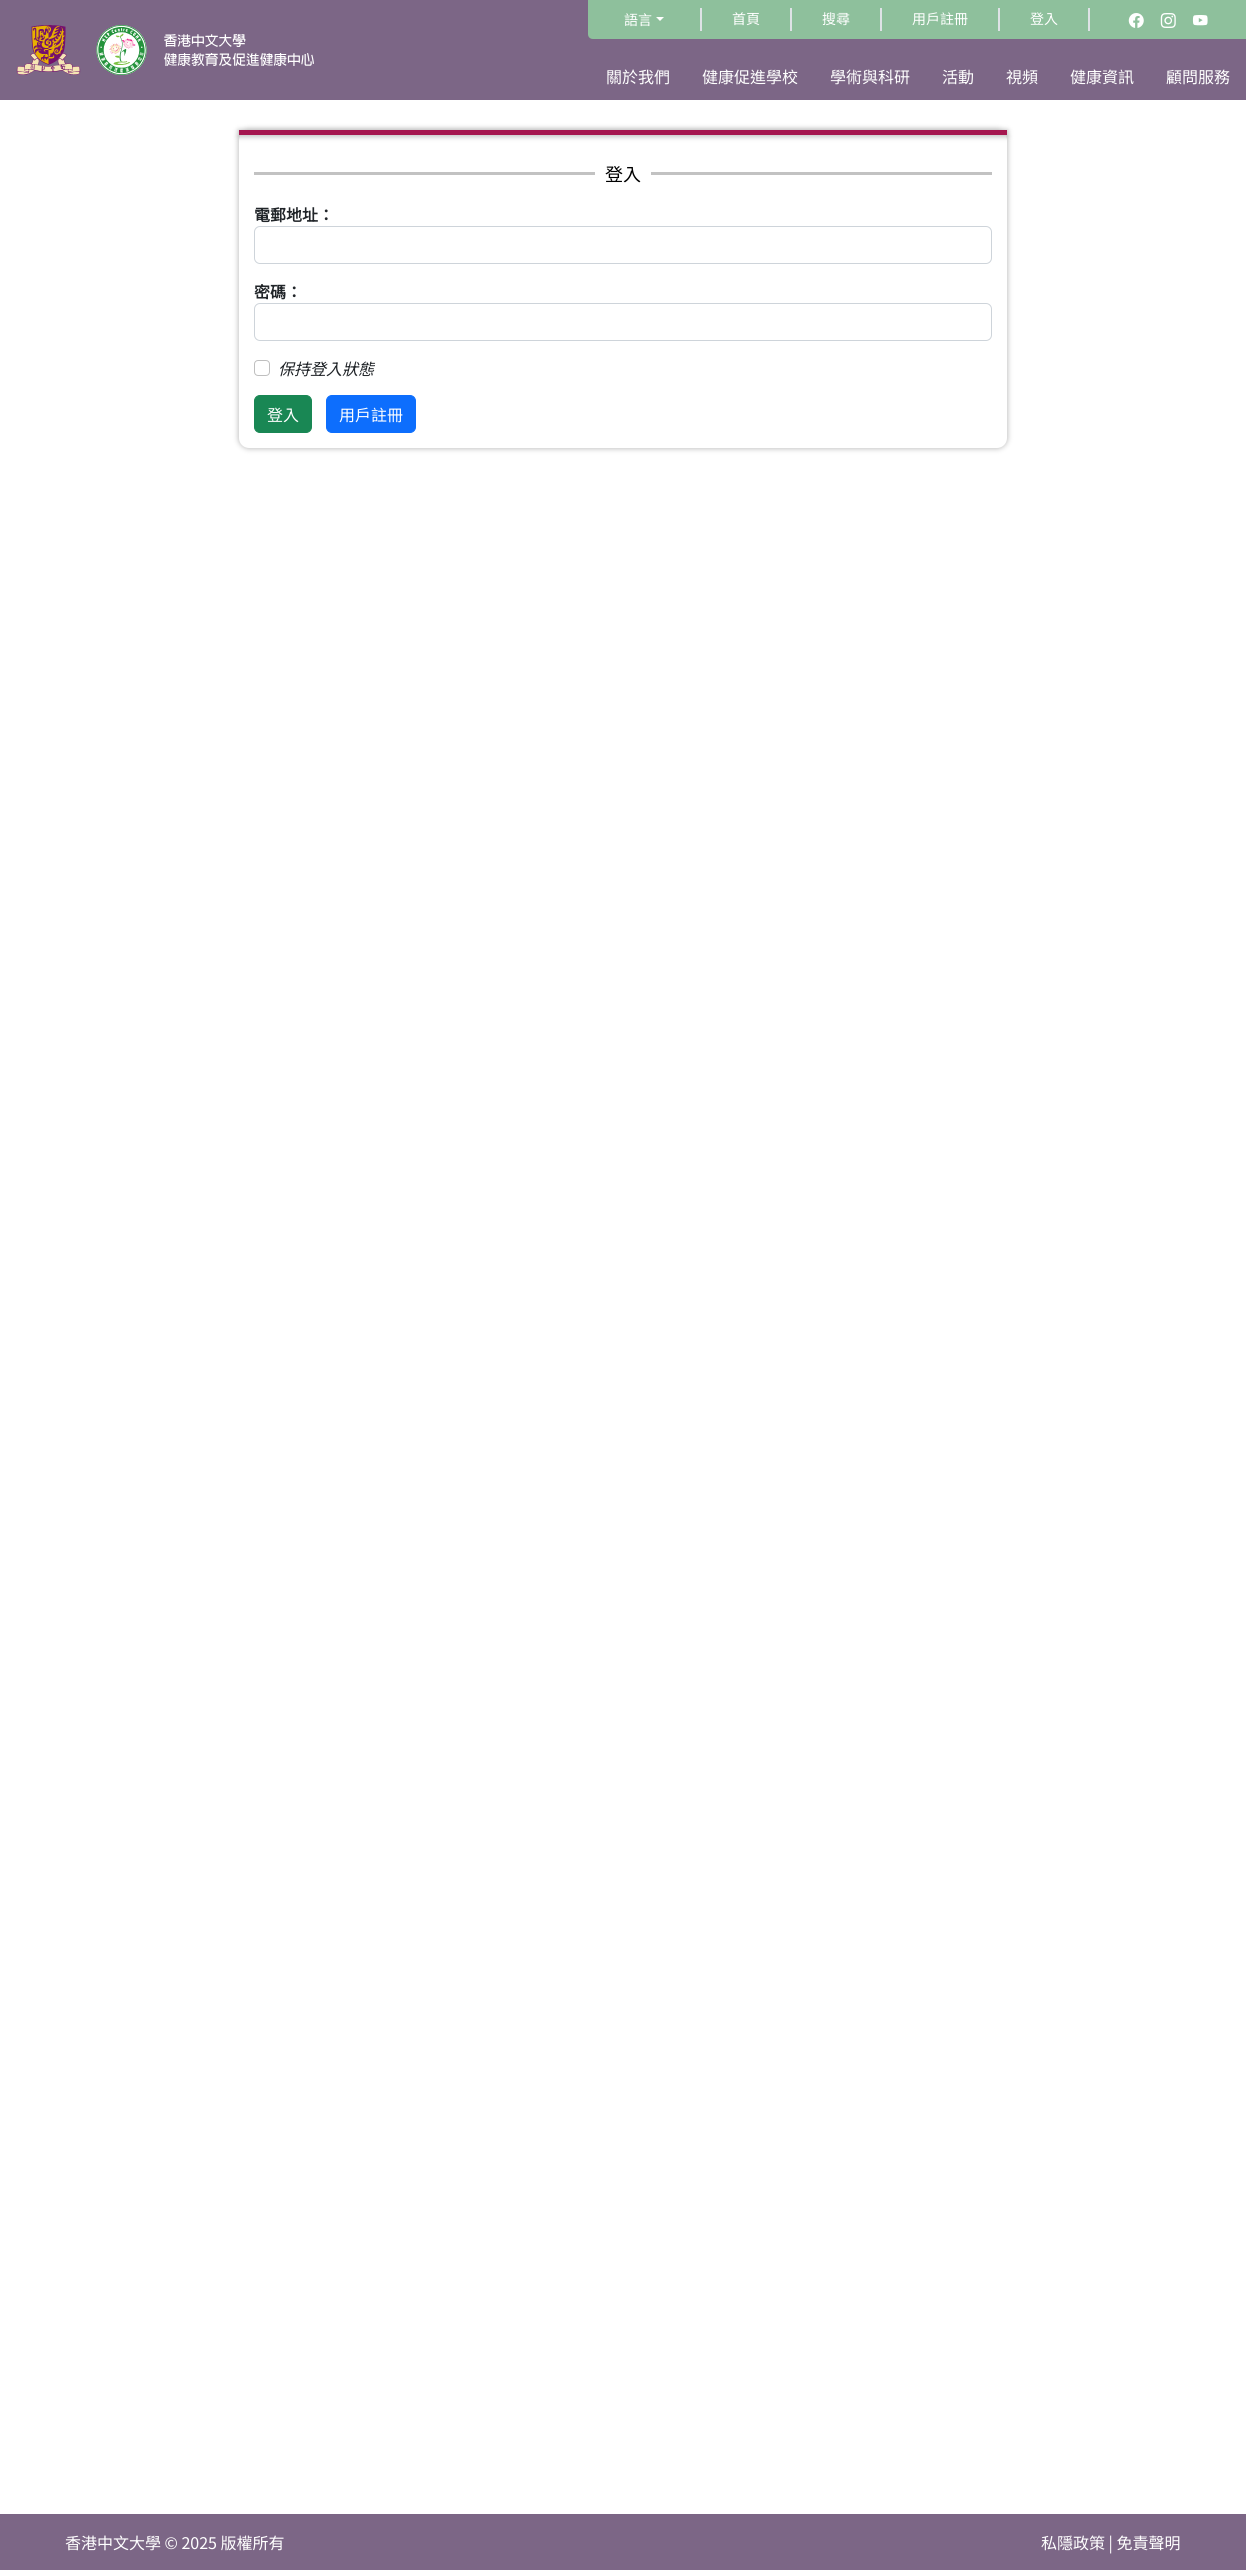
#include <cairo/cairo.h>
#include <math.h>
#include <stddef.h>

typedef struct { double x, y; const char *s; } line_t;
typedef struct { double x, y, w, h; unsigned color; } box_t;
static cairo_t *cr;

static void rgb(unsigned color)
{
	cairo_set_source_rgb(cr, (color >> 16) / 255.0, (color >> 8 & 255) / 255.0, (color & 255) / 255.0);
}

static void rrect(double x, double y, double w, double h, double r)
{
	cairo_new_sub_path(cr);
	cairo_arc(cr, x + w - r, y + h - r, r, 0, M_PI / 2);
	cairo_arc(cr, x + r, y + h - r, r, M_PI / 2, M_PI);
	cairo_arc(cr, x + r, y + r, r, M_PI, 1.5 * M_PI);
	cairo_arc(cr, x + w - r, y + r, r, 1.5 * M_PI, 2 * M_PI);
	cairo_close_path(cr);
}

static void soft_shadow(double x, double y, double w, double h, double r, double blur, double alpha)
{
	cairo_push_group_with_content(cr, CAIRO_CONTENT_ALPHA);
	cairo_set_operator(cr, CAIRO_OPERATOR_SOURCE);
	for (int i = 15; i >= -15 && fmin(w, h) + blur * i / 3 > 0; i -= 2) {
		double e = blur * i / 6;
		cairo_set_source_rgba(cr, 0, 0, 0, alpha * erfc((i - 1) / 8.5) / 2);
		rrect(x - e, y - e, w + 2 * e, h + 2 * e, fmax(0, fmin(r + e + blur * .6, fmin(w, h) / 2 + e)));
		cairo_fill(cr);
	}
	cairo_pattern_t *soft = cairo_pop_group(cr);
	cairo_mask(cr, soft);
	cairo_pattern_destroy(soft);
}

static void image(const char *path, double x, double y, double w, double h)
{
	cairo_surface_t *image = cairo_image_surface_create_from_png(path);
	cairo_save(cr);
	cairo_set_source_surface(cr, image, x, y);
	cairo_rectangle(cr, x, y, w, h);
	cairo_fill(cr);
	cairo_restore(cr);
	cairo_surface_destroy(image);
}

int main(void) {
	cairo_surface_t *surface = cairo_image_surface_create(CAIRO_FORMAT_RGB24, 1246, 2570);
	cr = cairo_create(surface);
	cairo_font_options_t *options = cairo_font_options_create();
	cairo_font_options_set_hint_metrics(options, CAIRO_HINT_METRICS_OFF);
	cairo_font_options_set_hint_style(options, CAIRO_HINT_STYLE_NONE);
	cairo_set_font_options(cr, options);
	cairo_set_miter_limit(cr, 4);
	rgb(0xffffff);
	cairo_paint(cr);
	rgb(0x7c6686);
	cairo_rectangle(cr, 0, 0, 1246, 100);
	cairo_fill(cr);
	image("img/1.png", 16, 25, 65, 50);
	image("img/2.png", 96, 25, 51, 50);
	image("img/3.png", 164, 34, 150, 32);
	rgb(0x8ec09c);
	cairo_new_path(cr);
	cairo_move_to(cr, 588, 0);
	cairo_line_to(cr, 1246, 0);
	cairo_line_to(cr, 1246, 39);
	cairo_line_to(cr, 593, 39);
	cairo_curve_to(cr, 590, 39, 588, 37, 588, 34);
	cairo_close_path(cr);
	cairo_fill(cr);
	rgb(0xdee2e6);
	cairo_rectangle(cr, 700, 8, 2, 23);
	cairo_fill(cr);
	rgb(0xffffff);
	cairo_new_path(cr);
	cairo_move_to(cr, 656, 17);
	cairo_line_to(cr, 664, 17);
	cairo_line_to(cr, 660, 21);
	cairo_close_path(cr);
	cairo_fill(cr);
	{
		static const box_t items[] = {
			{790, 8, 2, 23, 0xdee2e6},
			{880, 8, 2, 23, 0xdee2e6},
			{998, 8, 2, 23, 0xdee2e6},
			{1088, 8, 2, 23, 0xdee2e6},
		};
		for (size_t i = 0; i < sizeof items / sizeof *items; i++) {
			rgb(items[i].color);
			cairo_rectangle(cr, items[i].x, items[i].y, items[i].w, items[i].h);
			cairo_fill(cr);
		}
	}
	image("img/4.png", 1128, 13, 16, 15);
	image("img/5.png", 1160, 13, 16, 15);
	image("img/6.png", 1192, 15, 16, 11);
	rgb(0xc2c2c2);
	soft_shadow(238, 129, 770, 320, 11, 2.5, 1);
	rgb(0xffffff);
	rrect(239, 130, 768, 318, 10);
	cairo_fill(cr);
	rgb(0xc2c2c2);
	soft_shadow(238, 130, 770, 7, 0, 2.5, 1);
	{
		static const box_t items[] = {
			{239, 130, 768, 5, 0xa5164f},
			{254, 172, 738, 3, 0xc2c2c2},
			{595, 172, 56, 3, 0xffffff},
		};
		for (size_t i = 0; i < sizeof items / sizeof *items; i++) {
			rgb(items[i].color);
			cairo_rectangle(cr, items[i].x, items[i].y, items[i].w, items[i].h);
			cairo_fill(cr);
		}
	}
	rrect(254.5, 226.5, 737, 37, 5.5);
	rgb(0xced4da);
	cairo_set_line_width(cr, 1);
	cairo_stroke(cr);
	rrect(254.5, 303.5, 737, 37, 5.5);
	cairo_stroke(cr);
	rrect(254.5, 360.5, 15, 15, 3.5);
	rgb(0xbfbfbf);
	cairo_stroke(cr);
	rgb(0x198754);
	rrect(254.5, 395.5, 57, 37, 5.5);
	cairo_fill_preserve(cr);
	cairo_stroke(cr);
	rgb(0x0d6efd);
	rrect(326.5, 395.5, 89, 37, 5.5);
	cairo_fill_preserve(cr);
	cairo_stroke(cr);
	rgb(0x7c6686);
	cairo_rectangle(cr, 0, 2514, 1246, 56);
	cairo_fill(cr);
	cairo_select_font_face(cr, "Noto Sans TC Thin", CAIRO_FONT_SLANT_NORMAL, CAIRO_FONT_WEIGHT_NORMAL);
	cairo_set_font_size(cr, 14);
	rgb(0xffffff);
	{
		static const line_t items[] = {
			{624, 25, "語言"},
			{732, 24, "首頁"},
			{822, 24, "搜尋"},
			{912, 24, "用戶註冊"},
			{1030, 24, "登入"},
		};
		for (size_t i = 0; i < sizeof items / sizeof *items; i++) {
			cairo_move_to(cr, items[i].x, items[i].y);
			cairo_show_text(cr, items[i].s);
		}
	}
	cairo_set_font_size(cr, 16);
	{
		static const line_t items[] = {
			{606, 83, "關於我們"},
			{702, 83, "健康促進學校"},
			{830, 83, "學術與科研"},
			{942, 83, "活動"},
			{1006, 83, "視頻"},
			{1070, 83, "健康資訊"},
			{1166, 83, "顧問服務"},
		};
		for (size_t i = 0; i < sizeof items / sizeof *items; i++) {
			cairo_move_to(cr, items[i].x, items[i].y);
			cairo_show_text(cr, items[i].s);
		}
	}
	cairo_set_font_size(cr, 18);
	rgb(0x000000);
	cairo_move_to(cr, 605, 181);
	cairo_show_text(cr, "登入");
	cairo_select_font_face(cr, "Noto Sans TC", CAIRO_FONT_SLANT_NORMAL, CAIRO_FONT_WEIGHT_BOLD);
	cairo_set_font_size(cr, 16);
	rgb(0x212529);
	cairo_move_to(cr, 254, 221);
	cairo_show_text(cr, "電郵地址：");
	cairo_move_to(cr, 254, 298);
	cairo_show_text(cr, "密碼：");
	cairo_select_font_face(cr, "Noto Sans TC Thin", CAIRO_FONT_SLANT_ITALIC, CAIRO_FONT_WEIGHT_NORMAL);
	cairo_move_to(cr, 278, 375);
	cairo_show_text(cr, "保持登入狀態");
	cairo_select_font_face(cr, "Noto Sans TC Thin", CAIRO_FONT_SLANT_NORMAL, CAIRO_FONT_WEIGHT_NORMAL);
	rgb(0xffffff);
	{
		static const line_t items[] = {
			{267, 421, "登入"},
			{339, 421, "用戶註冊"},
			{65, 2549, "香港中文大學 © 2025 版權所有"},
			{1041, 2549, "私隱政策 | 免責聲明"},
		};
		for (size_t i = 0; i < sizeof items / sizeof *items; i++) {
			cairo_move_to(cr, items[i].x, items[i].y);
			cairo_show_text(cr, items[i].s);
		}
	}
	cairo_surface_write_to_png(surface, "page.png");
	cairo_font_options_destroy(options);
	cairo_destroy(cr);
	cairo_surface_destroy(surface);
	return 0;
}
